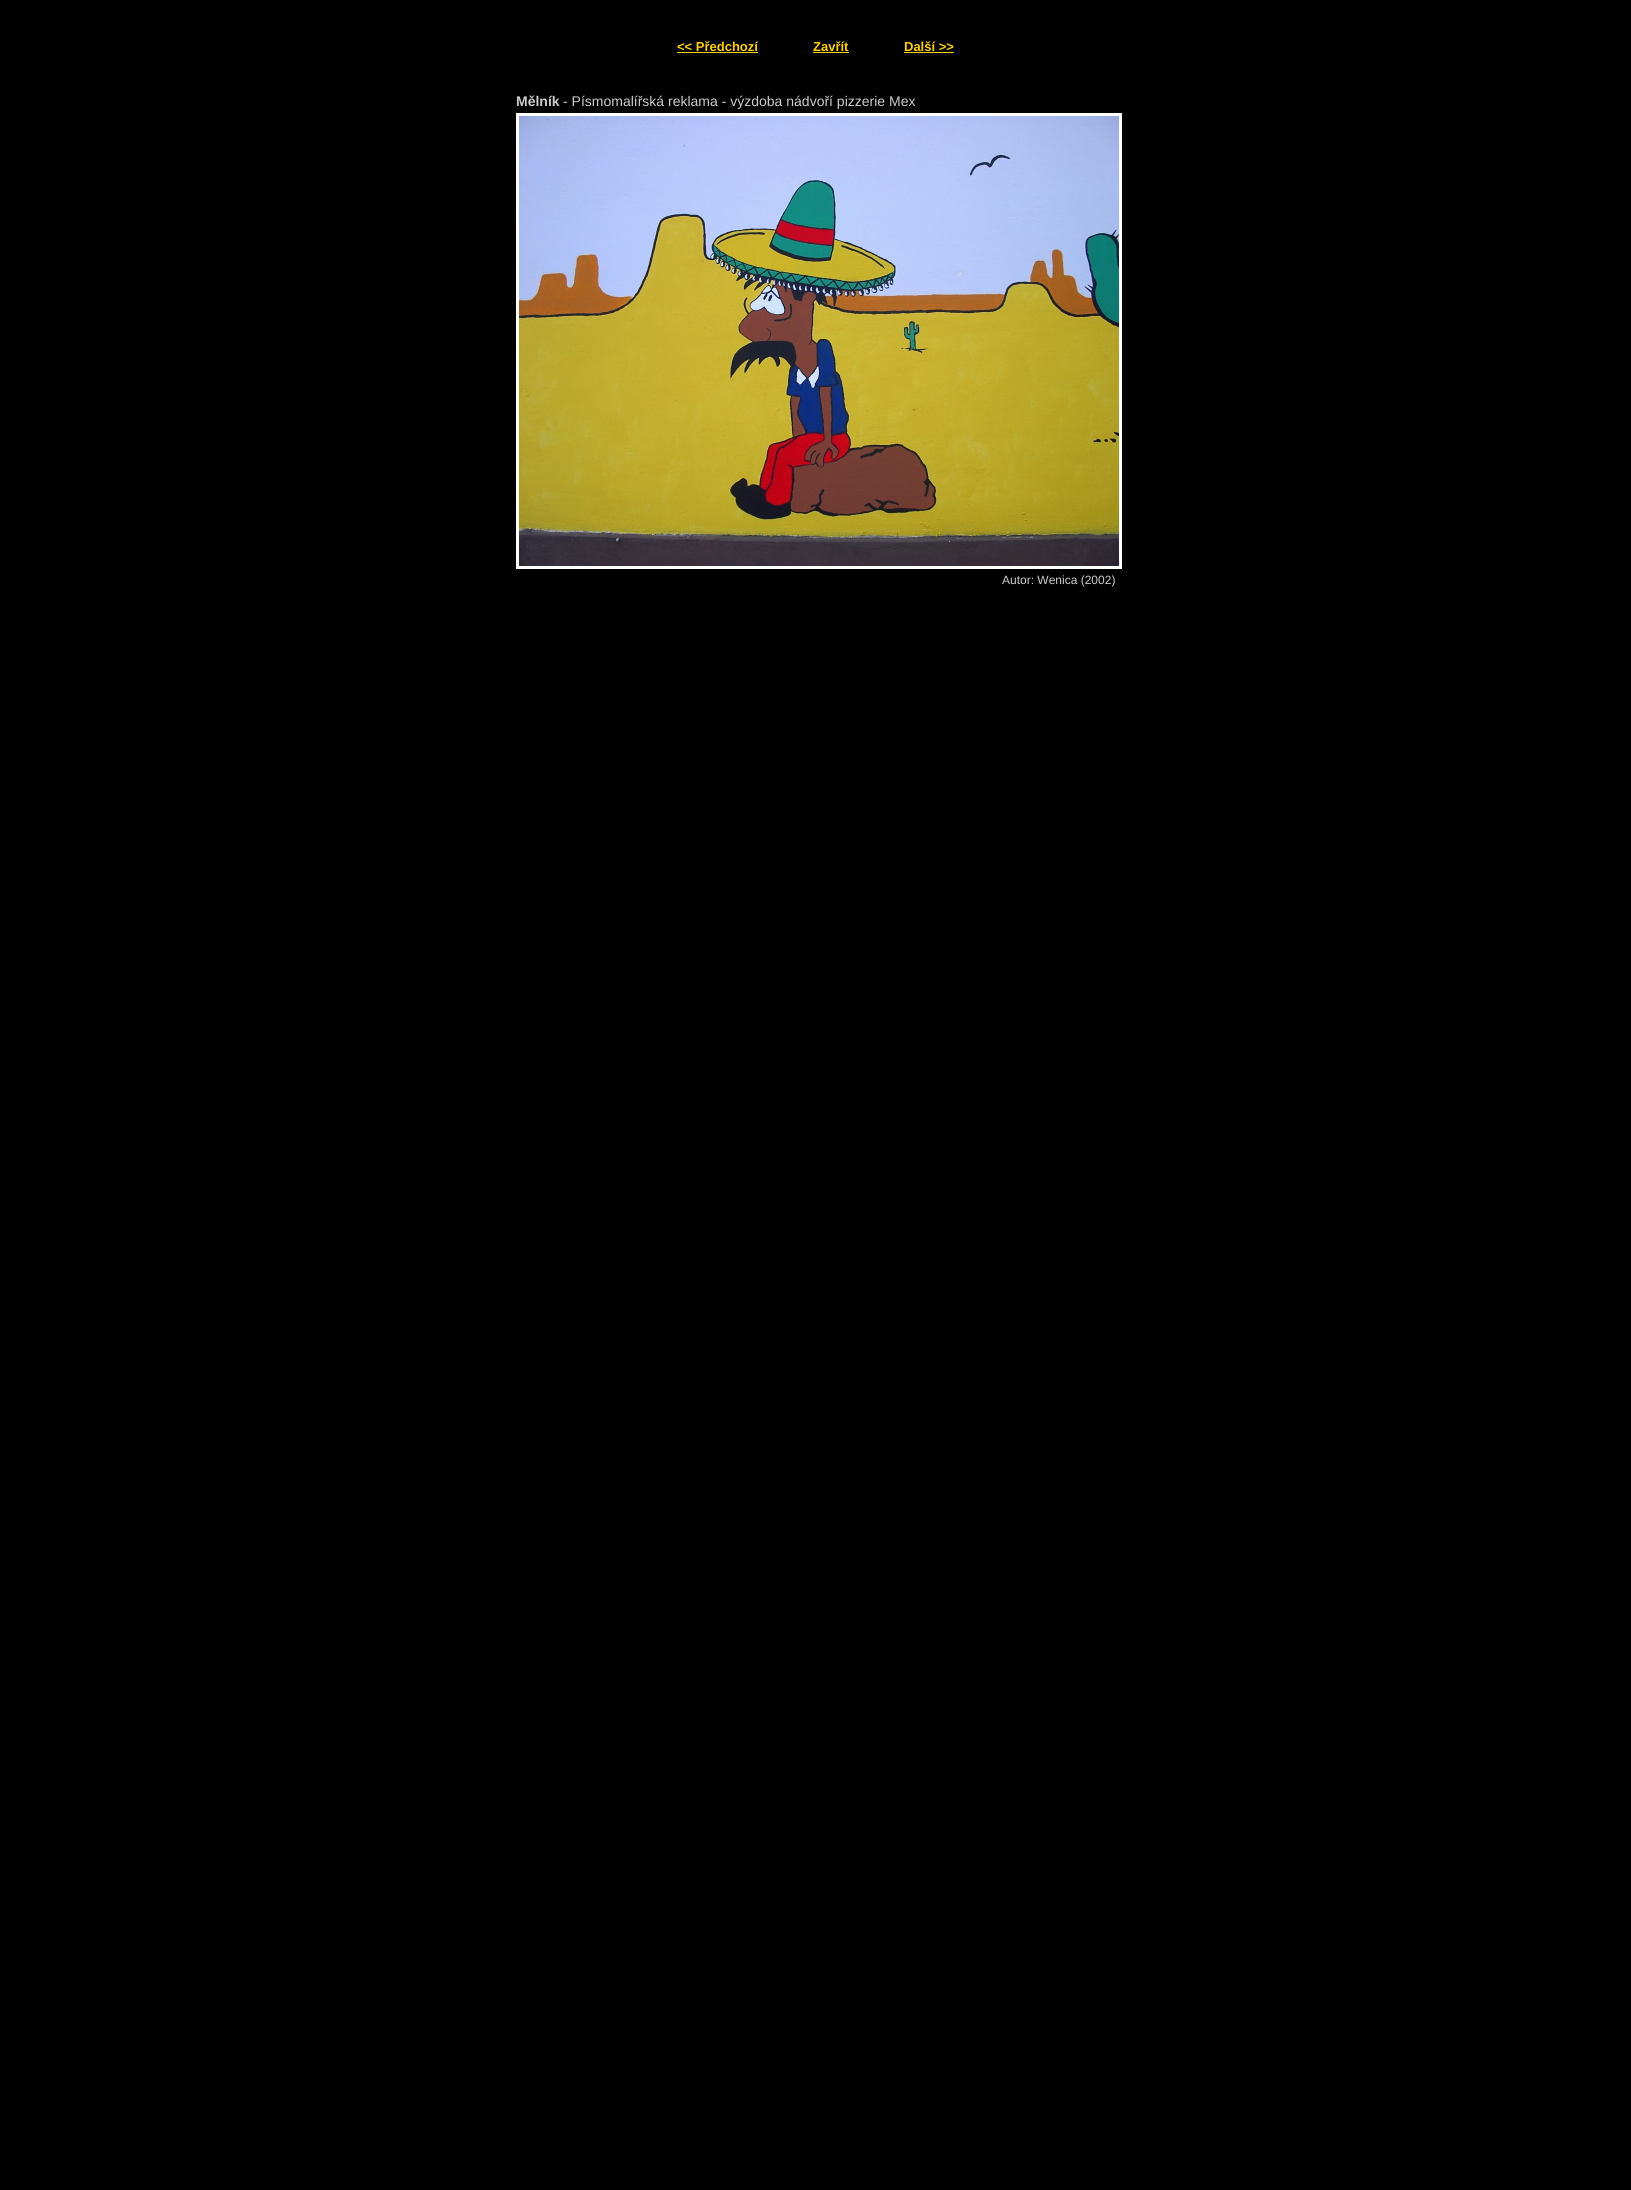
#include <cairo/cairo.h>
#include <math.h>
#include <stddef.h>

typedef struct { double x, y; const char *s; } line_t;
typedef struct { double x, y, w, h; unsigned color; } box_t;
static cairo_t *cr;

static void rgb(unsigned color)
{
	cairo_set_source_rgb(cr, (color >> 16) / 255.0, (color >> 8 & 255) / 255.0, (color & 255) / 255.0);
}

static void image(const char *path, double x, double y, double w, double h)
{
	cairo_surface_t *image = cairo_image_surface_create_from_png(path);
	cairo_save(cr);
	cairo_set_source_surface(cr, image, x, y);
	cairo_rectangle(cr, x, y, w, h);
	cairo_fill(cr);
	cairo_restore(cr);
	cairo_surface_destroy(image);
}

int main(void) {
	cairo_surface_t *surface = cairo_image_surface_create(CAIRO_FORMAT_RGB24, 1631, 2190);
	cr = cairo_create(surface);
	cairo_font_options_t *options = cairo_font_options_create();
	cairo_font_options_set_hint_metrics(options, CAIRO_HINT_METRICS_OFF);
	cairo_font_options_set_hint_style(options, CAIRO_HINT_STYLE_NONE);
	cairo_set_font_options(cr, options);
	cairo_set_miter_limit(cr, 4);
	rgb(0x000000);
	cairo_paint(cr);
	{
		static const box_t items[] = {
			{677, 52, 81, 1, 0xffd000},
			{813, 52, 36, 1, 0xffd000},
			{904, 52, 50, 1, 0xffd000},
		};
		for (size_t i = 0; i < sizeof items / sizeof *items; i++) {
			rgb(items[i].color);
			cairo_rectangle(cr, items[i].x, items[i].y, items[i].w, items[i].h);
			cairo_fill(cr);
		}
	}
	cairo_rectangle(cr, 517.5, 114.5, 603, 453);
	rgb(0xffffff);
	cairo_set_line_width(cr, 3);
	cairo_stroke(cr);
	image("img/1.png", 519, 116, 600, 450);
	cairo_select_font_face(cr, "Liberation Sans", CAIRO_FONT_SLANT_NORMAL, CAIRO_FONT_WEIGHT_BOLD);
	cairo_set_font_size(cr, 13);
	rgb(0xffd000);
	{
		static const line_t items[] = {
			{677, 51, "<< Předchozí"},
			{813, 51, "Zavřít"},
			{904, 51, "Další >>"},
		};
		for (size_t i = 0; i < sizeof items / sizeof *items; i++) {
			cairo_move_to(cr, items[i].x, items[i].y);
			cairo_show_text(cr, items[i].s);
		}
	}
	cairo_set_font_size(cr, 14);
	rgb(0xcccccc);
	cairo_move_to(cr, 516, 106);
	cairo_show_text(cr, "Mělník");
	cairo_select_font_face(cr, "Liberation Sans", CAIRO_FONT_SLANT_NORMAL, CAIRO_FONT_WEIGHT_NORMAL);
	cairo_move_to(cr, 563, 106);
	cairo_show_text(cr, "- Písmomalířská reklama - výzdoba nádvoří pizzerie Mex");
	cairo_set_font_size(cr, 12);
	cairo_move_to(cr, 1002, 584);
	cairo_show_text(cr, "Autor: Wenica (2002)");
	cairo_surface_write_to_png(surface, "page.png");
	cairo_font_options_destroy(options);
	cairo_destroy(cr);
	cairo_surface_destroy(surface);
	return 0;
}
